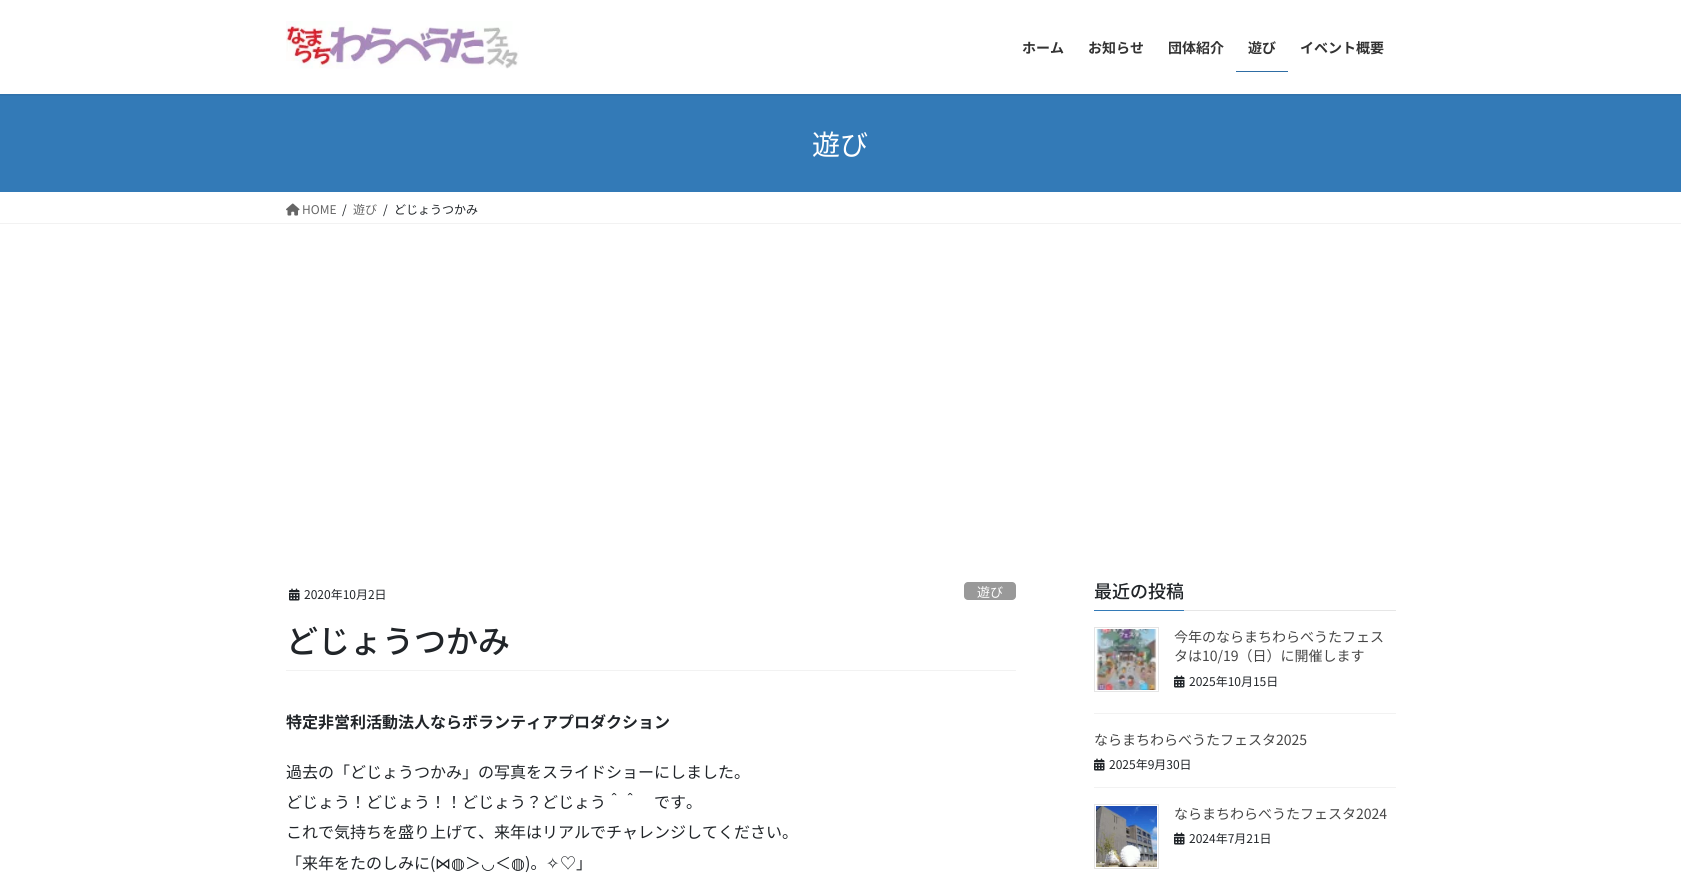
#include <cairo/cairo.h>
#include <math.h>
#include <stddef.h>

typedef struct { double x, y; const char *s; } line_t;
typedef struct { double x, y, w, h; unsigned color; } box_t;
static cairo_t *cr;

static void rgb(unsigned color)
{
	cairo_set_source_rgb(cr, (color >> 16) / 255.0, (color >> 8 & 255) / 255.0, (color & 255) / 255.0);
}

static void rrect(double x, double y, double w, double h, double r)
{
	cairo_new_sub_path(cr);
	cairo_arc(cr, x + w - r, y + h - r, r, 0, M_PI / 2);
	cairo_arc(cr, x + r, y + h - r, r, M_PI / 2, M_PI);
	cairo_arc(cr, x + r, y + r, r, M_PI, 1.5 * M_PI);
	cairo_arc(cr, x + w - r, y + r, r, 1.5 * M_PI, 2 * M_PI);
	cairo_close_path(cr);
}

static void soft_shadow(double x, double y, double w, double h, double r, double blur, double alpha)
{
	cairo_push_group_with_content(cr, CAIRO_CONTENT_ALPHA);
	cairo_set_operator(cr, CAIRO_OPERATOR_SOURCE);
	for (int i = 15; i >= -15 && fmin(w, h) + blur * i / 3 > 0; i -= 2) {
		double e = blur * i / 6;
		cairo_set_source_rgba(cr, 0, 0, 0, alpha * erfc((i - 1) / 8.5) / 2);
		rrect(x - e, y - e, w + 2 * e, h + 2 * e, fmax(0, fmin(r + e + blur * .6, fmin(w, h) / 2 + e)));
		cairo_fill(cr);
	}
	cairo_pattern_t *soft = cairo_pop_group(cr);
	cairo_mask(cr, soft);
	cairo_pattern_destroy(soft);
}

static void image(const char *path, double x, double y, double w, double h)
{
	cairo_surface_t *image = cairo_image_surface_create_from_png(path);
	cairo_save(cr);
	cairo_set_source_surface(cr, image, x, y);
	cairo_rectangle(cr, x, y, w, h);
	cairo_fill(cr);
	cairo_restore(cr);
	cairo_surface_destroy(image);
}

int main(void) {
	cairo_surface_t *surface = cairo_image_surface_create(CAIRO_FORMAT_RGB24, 1681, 879);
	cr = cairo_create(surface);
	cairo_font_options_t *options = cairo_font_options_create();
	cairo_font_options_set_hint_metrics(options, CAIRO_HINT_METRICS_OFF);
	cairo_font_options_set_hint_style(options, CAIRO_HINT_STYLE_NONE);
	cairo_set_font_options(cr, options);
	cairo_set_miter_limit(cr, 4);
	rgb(0xffffff);
	cairo_paint(cr);
	rgb(0x337ab7);
	cairo_rectangle(cr, 0, 94, 1681, 98);
	cairo_fill(cr);
	cairo_save(cr);
	cairo_rectangle(cr, 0, 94, 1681, 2);
	cairo_clip(cr);
	rgb(0x000000);
	soft_shadow(0, 1, 1681, 94, 0, 1.5, 0.1);
	cairo_restore(cr);
	image("img/1.png", 286, 21, 233, 48);
	rgb(0x2e6da4);
	cairo_rectangle(cr, 1236, 71, 52, 1);
	cairo_fill(cr);
	rgb(0xf2f2f2);
	cairo_rectangle(cr, 0, 223, 1681, 1);
	cairo_fill(cr);
	image("img/2.png", 286, 203, 14, 13);
	cairo_rectangle(cr, 286, 670, 730, 1);
	cairo_fill(cr);
	image("img/3.png", 289, 588, 11, 13);
	rgb(0x999999);
	rrect(964, 582, 52, 18, 4);
	cairo_fill(cr);
	{
		static const box_t items[] = {
			{1184, 610, 212, 1, 0xe6e6e6},
			{1094, 610, 90, 1, 0x337ab7},
			{1094, 713, 302, 1, 0xf2f2f2},
		};
		for (size_t i = 0; i < sizeof items / sizeof *items; i++) {
			rgb(items[i].color);
			cairo_rectangle(cr, items[i].x, items[i].y, items[i].w, items[i].h);
			cairo_fill(cr);
		}
	}
	cairo_rectangle(cr, 1094.5, 627.5, 64, 64);
	rgb(0xe5e5e5);
	cairo_set_line_width(cr, 1);
	cairo_stroke(cr);
	image("img/4.png", 1096, 629, 61, 61);
	image("img/3.png", 1174, 675, 11, 13);
	rgb(0xf2f2f2);
	cairo_rectangle(cr, 1094, 787, 302, 1);
	cairo_fill(cr);
	image("img/3.png", 1094, 758, 11, 13);
	cairo_rectangle(cr, 1094.5, 804.5, 64, 64);
	rgb(0xe5e5e5);
	cairo_stroke(cr);
	image("img/5.png", 1096, 806, 61, 61);
	image("img/3.png", 1174, 832, 11, 13);
	cairo_select_font_face(cr, "Noto Sans JP", CAIRO_FONT_SLANT_NORMAL, CAIRO_FONT_WEIGHT_BOLD);
	cairo_set_font_size(cr, 14);
	rgb(0x333333);
	{
		static const line_t items[] = {
			{1022, 53, "ホーム"},
			{1088, 53, "お知らせ"},
			{1168, 53, "団体紹介"},
			{1248, 53, "遊び"},
			{1300, 53, "イベント概要"},
		};
		for (size_t i = 0; i < sizeof items / sizeof *items; i++) {
			cairo_move_to(cr, items[i].x, items[i].y);
			cairo_show_text(cr, items[i].s);
		}
	}
	cairo_select_font_face(cr, "Noto Sans JP", CAIRO_FONT_SLANT_NORMAL, CAIRO_FONT_WEIGHT_NORMAL);
	cairo_set_font_size(cr, 28);
	rgb(0xffffff);
	cairo_move_to(cr, 812, 155);
	cairo_show_text(cr, "遊び");
	cairo_set_font_size(cr, 12);
	rgb(0x666666);
	cairo_move_to(cr, 302, 214);
	cairo_show_text(cr, "HOME");
	rgb(0x212529);
	cairo_move_to(cr, 342, 214);
	cairo_show_text(cr, "/");
	rgb(0x666666);
	cairo_move_to(cr, 353, 214);
	cairo_show_text(cr, "遊び");
	rgb(0x212529);
	{
		static const line_t items[] = {
			{383, 214, "/"},
			{394, 214, "どじょうつかみ"},
			{304, 599, "2020年10月2日"},
		};
		for (size_t i = 0; i < sizeof items / sizeof *items; i++) {
			cairo_move_to(cr, items[i].x, items[i].y);
			cairo_show_text(cr, items[i].s);
		}
	}
	cairo_set_font_size(cr, 13);
	rgb(0xffffff);
	cairo_move_to(cr, 977, 597);
	cairo_show_text(cr, "遊び");
	cairo_select_font_face(cr, "Noto Sans JP Medium", CAIRO_FONT_SLANT_NORMAL, CAIRO_FONT_WEIGHT_NORMAL);
	cairo_set_font_size(cr, 32);
	rgb(0x212529);
	cairo_move_to(cr, 286, 653);
	cairo_show_text(cr, "どじょうつかみ");
	cairo_select_font_face(cr, "Noto Sans JP", CAIRO_FONT_SLANT_NORMAL, CAIRO_FONT_WEIGHT_BOLD);
	cairo_set_font_size(cr, 16);
	cairo_move_to(cr, 286, 728);
	cairo_show_text(cr, "特定非営利活動法人ならボランティアプロダクション");
	cairo_select_font_face(cr, "Noto Sans JP", CAIRO_FONT_SLANT_NORMAL, CAIRO_FONT_WEIGHT_NORMAL);
	{
		static const line_t items[] = {
			{286, 778, "過去の「どじょうつかみ」の写真をスライドショーにしました。"},
			{286, 808, "どじょう！どじょう！！どじょう？どじょう＾＾　です。"},
			{286, 838, "これで気持ちを盛り上げて、来年はリアルでチャレンジしてください。"},
			{286, 869, "「来年をたのしみに("},
		};
		for (size_t i = 0; i < sizeof items / sizeof *items; i++) {
			cairo_move_to(cr, items[i].x, items[i].y);
			cairo_show_text(cr, items[i].s);
		}
	}
	cairo_select_font_face(cr, "DejaVu Sans", CAIRO_FONT_SLANT_NORMAL, CAIRO_FONT_WEIGHT_NORMAL);
	cairo_move_to(cr, 435, 869);
	cairo_show_text(cr, "⋈◍");
	cairo_select_font_face(cr, "Noto Sans JP", CAIRO_FONT_SLANT_NORMAL, CAIRO_FONT_WEIGHT_NORMAL);
	cairo_move_to(cr, 465, 869);
	cairo_show_text(cr, "＞");
	cairo_select_font_face(cr, "DejaVu Sans", CAIRO_FONT_SLANT_NORMAL, CAIRO_FONT_WEIGHT_NORMAL);
	cairo_move_to(cr, 481, 869);
	cairo_show_text(cr, "◡");
	cairo_select_font_face(cr, "Noto Sans JP", CAIRO_FONT_SLANT_NORMAL, CAIRO_FONT_WEIGHT_NORMAL);
	cairo_move_to(cr, 495, 869);
	cairo_show_text(cr, "＜");
	cairo_select_font_face(cr, "DejaVu Sans", CAIRO_FONT_SLANT_NORMAL, CAIRO_FONT_WEIGHT_NORMAL);
	cairo_move_to(cr, 511, 869);
	cairo_show_text(cr, "◍");
	cairo_select_font_face(cr, "Noto Sans JP", CAIRO_FONT_SLANT_NORMAL, CAIRO_FONT_WEIGHT_NORMAL);
	cairo_move_to(cr, 525, 869);
	cairo_show_text(cr, ")。");
	cairo_select_font_face(cr, "DejaVu Sans", CAIRO_FONT_SLANT_NORMAL, CAIRO_FONT_WEIGHT_NORMAL);
	cairo_move_to(cr, 546, 869);
	cairo_show_text(cr, "✧");
	cairo_select_font_face(cr, "Noto Sans JP", CAIRO_FONT_SLANT_NORMAL, CAIRO_FONT_WEIGHT_NORMAL);
	cairo_move_to(cr, 560, 869);
	cairo_show_text(cr, "♡」");
	cairo_select_font_face(cr, "Noto Sans JP Medium", CAIRO_FONT_SLANT_NORMAL, CAIRO_FONT_WEIGHT_NORMAL);
	cairo_set_font_size(cr, 18);
	cairo_move_to(cr, 1094, 598);
	cairo_show_text(cr, "最近の投稿");
	cairo_select_font_face(cr, "Noto Sans JP", CAIRO_FONT_SLANT_NORMAL, CAIRO_FONT_WEIGHT_NORMAL);
	cairo_set_font_size(cr, 14);
	rgb(0x464646);
	cairo_move_to(cr, 1174, 642);
	cairo_show_text(cr, "今年のならまちわらべうたフェス");
	cairo_move_to(cr, 1174, 661);
	cairo_show_text(cr, "タは10/19（日）に開催します");
	cairo_set_font_size(cr, 12);
	rgb(0x212529);
	cairo_move_to(cr, 1189, 686);
	cairo_show_text(cr, "2025年10月15日");
	cairo_set_font_size(cr, 14);
	rgb(0x464646);
	cairo_move_to(cr, 1094, 745);
	cairo_show_text(cr, "ならまちわらべうたフェスタ2025");
	cairo_set_font_size(cr, 12);
	rgb(0x212529);
	cairo_move_to(cr, 1109, 769);
	cairo_show_text(cr, "2025年9月30日");
	cairo_set_font_size(cr, 14);
	rgb(0x464646);
	cairo_move_to(cr, 1174, 819);
	cairo_show_text(cr, "ならまちわらべうたフェスタ2024");
	cairo_set_font_size(cr, 12);
	rgb(0x212529);
	cairo_move_to(cr, 1189, 843);
	cairo_show_text(cr, "2024年7月21日");
	cairo_surface_write_to_png(surface, "page.png");
	cairo_font_options_destroy(options);
	cairo_destroy(cr);
	cairo_surface_destroy(surface);
	return 0;
}
